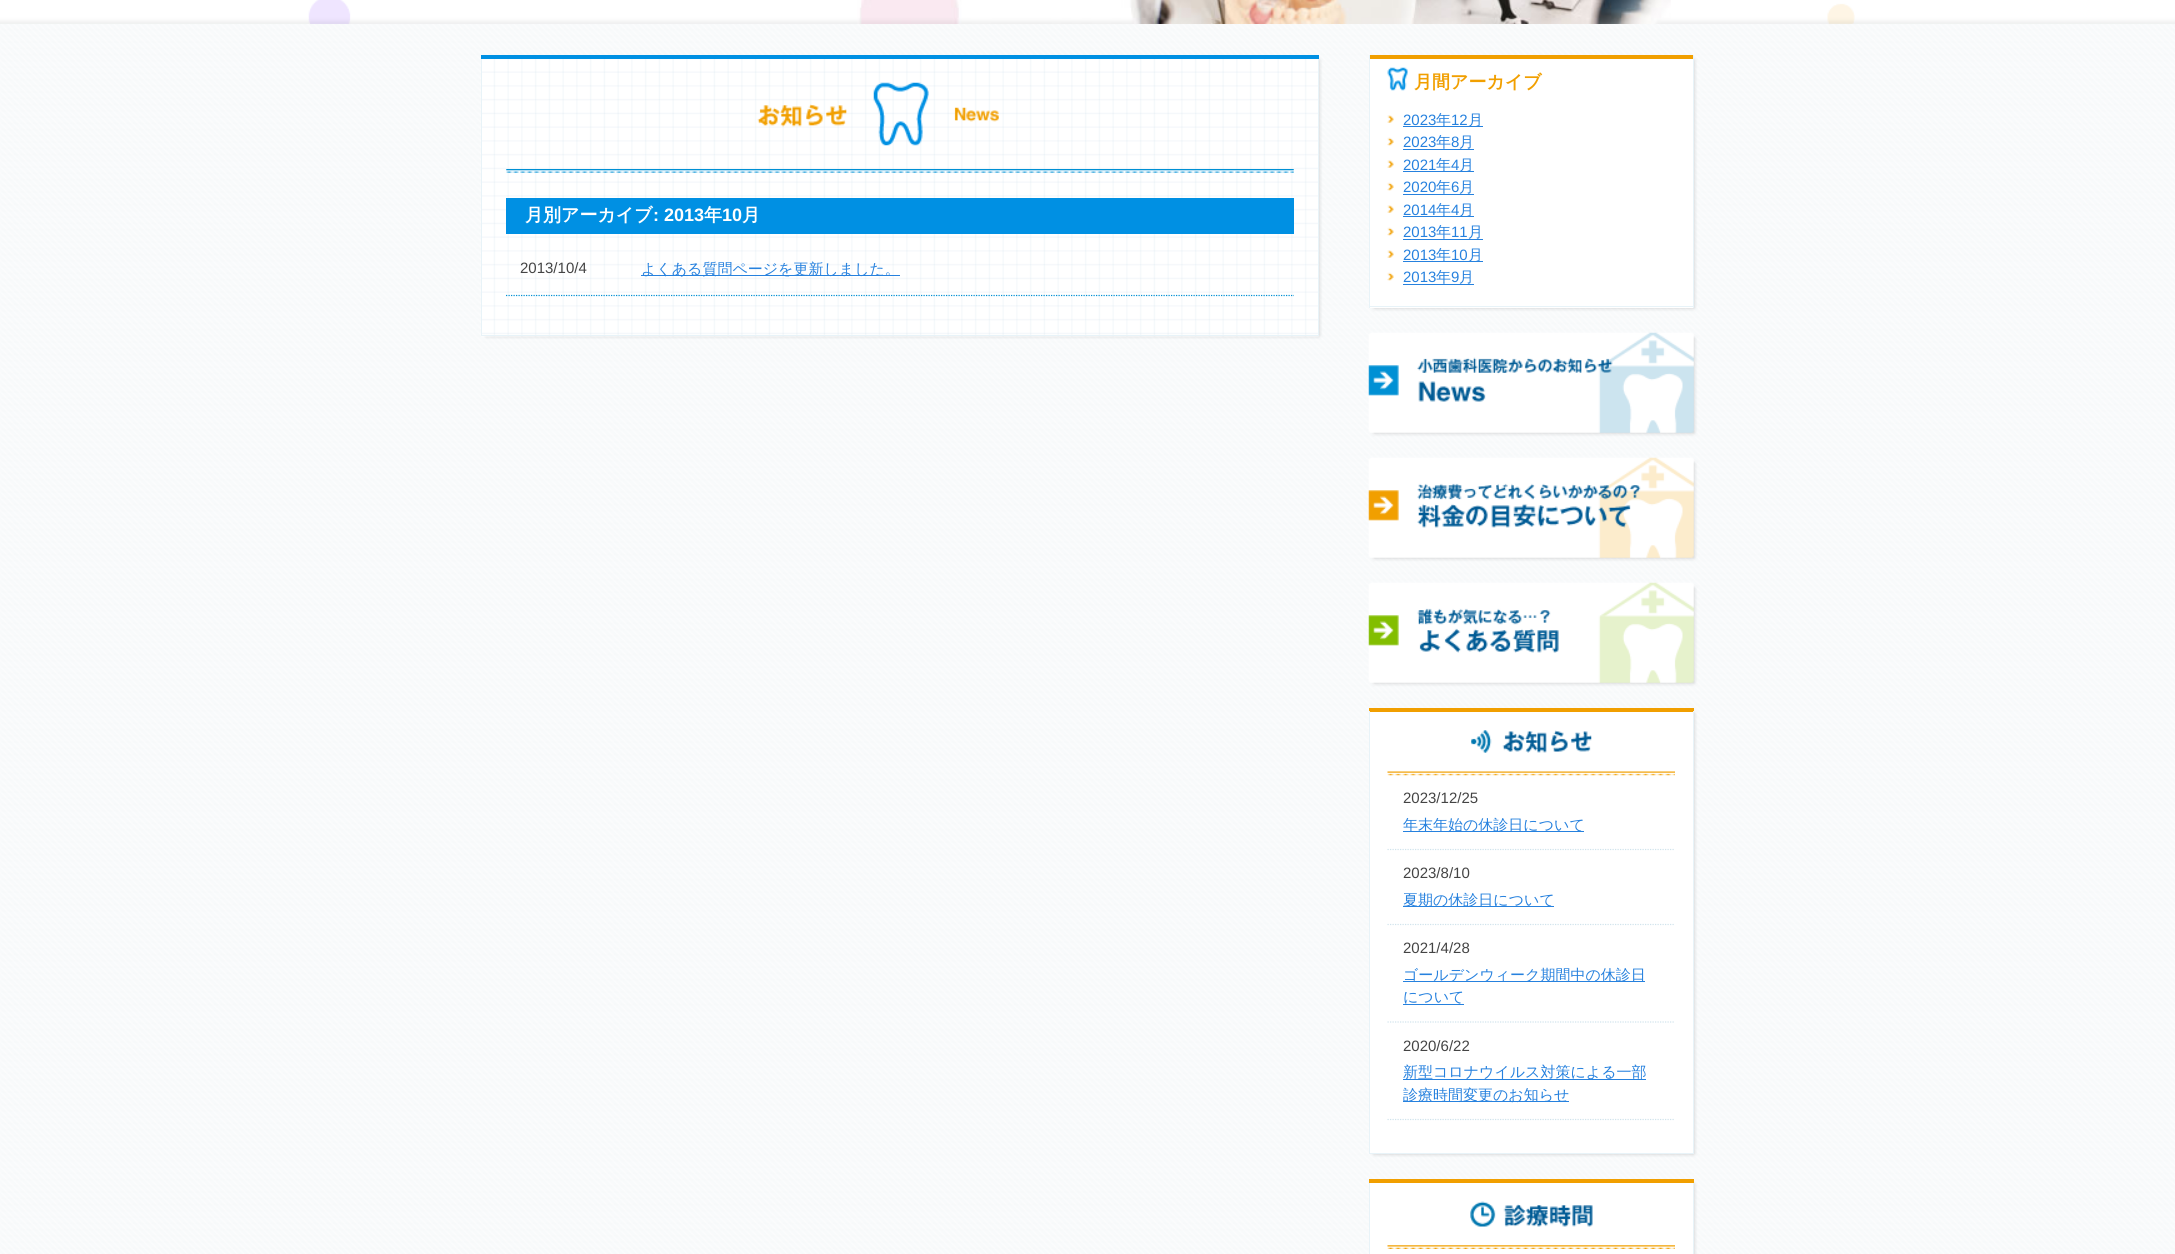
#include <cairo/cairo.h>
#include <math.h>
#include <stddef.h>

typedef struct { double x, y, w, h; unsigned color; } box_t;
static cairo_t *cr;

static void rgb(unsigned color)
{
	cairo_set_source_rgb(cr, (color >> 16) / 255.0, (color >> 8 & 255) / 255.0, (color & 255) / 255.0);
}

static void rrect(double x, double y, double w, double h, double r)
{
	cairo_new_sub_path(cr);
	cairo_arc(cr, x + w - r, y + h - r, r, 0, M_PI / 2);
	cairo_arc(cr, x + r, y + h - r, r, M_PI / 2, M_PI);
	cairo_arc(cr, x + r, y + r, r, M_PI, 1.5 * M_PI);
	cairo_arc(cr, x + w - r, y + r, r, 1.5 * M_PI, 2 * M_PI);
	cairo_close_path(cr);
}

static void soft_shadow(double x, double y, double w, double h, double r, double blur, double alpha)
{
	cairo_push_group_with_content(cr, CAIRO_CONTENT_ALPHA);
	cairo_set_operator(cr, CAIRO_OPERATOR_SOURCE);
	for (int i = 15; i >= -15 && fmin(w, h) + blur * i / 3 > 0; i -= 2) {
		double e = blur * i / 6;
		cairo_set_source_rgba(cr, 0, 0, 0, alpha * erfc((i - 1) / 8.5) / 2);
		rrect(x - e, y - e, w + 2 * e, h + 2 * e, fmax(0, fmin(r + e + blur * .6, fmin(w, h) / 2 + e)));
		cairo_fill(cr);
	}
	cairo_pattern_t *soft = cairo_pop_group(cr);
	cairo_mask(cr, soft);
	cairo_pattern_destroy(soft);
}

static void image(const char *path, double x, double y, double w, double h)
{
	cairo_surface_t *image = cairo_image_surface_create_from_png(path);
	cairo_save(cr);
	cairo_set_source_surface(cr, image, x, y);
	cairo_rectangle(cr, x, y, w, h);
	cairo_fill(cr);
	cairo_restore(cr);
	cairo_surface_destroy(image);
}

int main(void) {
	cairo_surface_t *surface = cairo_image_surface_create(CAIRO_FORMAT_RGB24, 2175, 1254);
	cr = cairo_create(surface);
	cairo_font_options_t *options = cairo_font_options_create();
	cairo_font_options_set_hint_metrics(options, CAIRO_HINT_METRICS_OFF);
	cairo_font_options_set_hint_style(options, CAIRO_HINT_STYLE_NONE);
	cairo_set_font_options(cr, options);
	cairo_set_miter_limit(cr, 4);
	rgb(0xffffff);
	cairo_paint(cr);
	image("img/1.png", 0, 24, 2175, 1230);
	image("img/2.png", 0, 0, 2175, 24);
	image("img/3.png", 308, 0, 1547, 24);
	image("img/4.png", 857, 0, 814, 24);
	rgb(0x000000);
	soft_shadow(486, 60, 833, 276, 0, 2, 0.2);
	image("img/5.png", 481, 59, 838, 278);
	{
		static const box_t items[] = {
			{481, 55, 838, 4, 0x0090e3},
			{1318, 59, 1, 277, 0xe8f3f8},
			{481, 335, 838, 1, 0xe8f3f8},
			{481, 59, 1, 277, 0xe8f3f8},
		};
		for (size_t i = 0; i < sizeof items / sizeof *items; i++) {
			rgb(items[i].color);
			cairo_rectangle(cr, items[i].x, items[i].y, items[i].w, items[i].h);
			cairo_fill(cr);
		}
	}
	image("img/6.png", 506, 169, 788, 4);
	image("img/7.png", 757, 82, 242, 64);
	rgb(0x0090e3);
	cairo_rectangle(cr, 506, 198, 788, 36);
	cairo_fill(cr);
	cairo_new_path(cr);
	cairo_move_to(cr, 506, 295.5);
	cairo_line_to(cr, 1294, 295.5);
	rgb(0x0090d4);
	cairo_set_line_width(cr, 1.2);
	cairo_set_dash(cr, (double[]){1.25, 1.25}, 2, 0);
	cairo_stroke(cr);
	rgb(0x2681de);
	cairo_rectangle(cr, 641, 275, 259, 1);
	cairo_fill(cr);
	rgb(0x000000);
	soft_shadow(1374, 60, 320, 248, 0, 2, 0.2);
	{
		static const box_t items[] = {
			{1370, 59, 323, 249, 0xffffff},
			{1693, 55, 1, 253, 0xe8f3f8},
			{1369, 306, 325, 1, 0xe8f3f8},
			{1369, 55, 1, 253, 0xe8f3f8},
		};
		for (size_t i = 0; i < sizeof items / sizeof *items; i++) {
			rgb(items[i].color);
			cairo_rectangle(cr, items[i].x, items[i].y, items[i].w, items[i].h);
			cairo_fill(cr);
		}
	}
	image("img/8.png", 1387, 67, 21, 24);
	rgb(0xf19f00);
	cairo_rectangle(cr, 1370, 55, 323, 4);
	cairo_fill(cr);
	image("img/9.png", 1387, 115, 7, 8);
	rgb(0x2681de);
	cairo_rectangle(cr, 1403, 126, 80, 1);
	cairo_fill(cr);
	image("img/10.png", 1387, 137, 7, 9);
	cairo_rectangle(cr, 1403, 149, 71, 1);
	cairo_fill(cr);
	image("img/9.png", 1387, 160, 7, 8);
	cairo_rectangle(cr, 1403, 171, 71, 1);
	cairo_fill(cr);
	image("img/10.png", 1387, 182, 7, 9);
	cairo_rectangle(cr, 1403, 194, 71, 1);
	cairo_fill(cr);
	image("img/9.png", 1387, 205, 7, 8);
	cairo_rectangle(cr, 1403, 216, 71, 1);
	cairo_fill(cr);
	image("img/10.png", 1387, 227, 7, 9);
	cairo_rectangle(cr, 1403, 239, 80, 1);
	cairo_fill(cr);
	image("img/9.png", 1387, 250, 7, 8);
	cairo_rectangle(cr, 1403, 261, 80, 1);
	cairo_fill(cr);
	image("img/10.png", 1387, 272, 7, 9);
	cairo_rectangle(cr, 1403, 284, 71, 1);
	cairo_fill(cr);
	rgb(0x000000);
	soft_shadow(1374, 338, 320, 95, 0, 2, 0.2);
	image("img/11.png", 1368, 332, 326, 101);
	soft_shadow(1374, 463, 320, 95, 0, 2, 0.2);
	image("img/12.png", 1368, 457, 326, 101);
	soft_shadow(1374, 588, 320, 95, 0, 2, 0.2);
	image("img/13.png", 1368, 582, 326, 101);
	soft_shadow(1374, 713, 320, 441, 0, 2, 0.2);
	{
		static const box_t items[] = {
			{1370, 712, 323, 441, 0xffffff},
			{1369, 708, 325, 4, 0xf19f00},
			{1693, 711, 1, 443, 0xe8f3f8},
			{1369, 1153, 325, 1, 0xe8f3f8},
			{1369, 711, 1, 443, 0xe8f3f8},
		};
		for (size_t i = 0; i < sizeof items / sizeof *items; i++) {
			rgb(items[i].color);
			cairo_rectangle(cr, items[i].x, items[i].y, items[i].w, items[i].h);
			cairo_fill(cr);
		}
	}
	image("img/14.png", 1387, 771, 288, 5);
	image("img/15.png", 1471, 730, 121, 23);
	cairo_new_path(cr);
	cairo_move_to(cr, 1387.5, 849.5);
	cairo_line_to(cr, 1675, 849.5);
	rgb(0xd0e3ec);
	cairo_stroke(cr);
	rgb(0x2681de);
	cairo_rectangle(cr, 1403, 831, 181, 1);
	cairo_fill(cr);
	cairo_new_path(cr);
	cairo_move_to(cr, 1387.5, 924.5);
	cairo_line_to(cr, 1675, 924.5);
	rgb(0xd0e3ec);
	cairo_stroke(cr);
	rgb(0x2681de);
	cairo_rectangle(cr, 1403, 906, 151, 1);
	cairo_fill(cr);
	cairo_new_path(cr);
	cairo_move_to(cr, 1387.5, 1022);
	cairo_line_to(cr, 1675, 1022);
	rgb(0xd0e3ec);
	cairo_stroke(cr);
	rgb(0x2681de);
	cairo_rectangle(cr, 1403, 981, 242, 1);
	cairo_fill(cr);
	cairo_rectangle(cr, 1403, 1004, 61, 1);
	cairo_fill(cr);
	cairo_new_path(cr);
	cairo_move_to(cr, 1387.5, 1119.5);
	cairo_line_to(cr, 1675, 1119.5);
	rgb(0xd0e3ec);
	cairo_stroke(cr);
	rgb(0x2681de);
	cairo_rectangle(cr, 1403, 1079, 243, 1);
	cairo_fill(cr);
	cairo_rectangle(cr, 1403, 1101, 166, 1);
	cairo_fill(cr);
	rgb(0x000000);
	soft_shadow(1374, 1184, 320, 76, 0, 2, 0.2);
	{
		static const box_t items[] = {
			{1370, 1183, 323, 71, 0xffffff},
			{1369, 1179, 325, 4, 0xf19f00},
			{1693, 1183, 1, 71, 0xe8f3f8},
			{1369, 1183, 1, 71, 0xe8f3f8},
		};
		for (size_t i = 0; i < sizeof items / sizeof *items; i++) {
			rgb(items[i].color);
			cairo_rectangle(cr, items[i].x, items[i].y, items[i].w, items[i].h);
			cairo_fill(cr);
		}
	}
	image("img/16.png", 1387, 1245, 288, 4);
	image("img/17.png", 1470, 1201, 123, 26);
	cairo_select_font_face(cr, "WenQuanYi Zen Hei", CAIRO_FONT_SLANT_NORMAL, CAIRO_FONT_WEIGHT_BOLD);
	cairo_set_font_size(cr, 18);
	rgb(0xffffff);
	cairo_move_to(cr, 525, 221);
	cairo_show_text(cr, "月別アーカイブ");
	cairo_select_font_face(cr, "Liberation Sans", CAIRO_FONT_SLANT_NORMAL, CAIRO_FONT_WEIGHT_BOLD);
	cairo_move_to(cr, 653, 221);
	cairo_show_text(cr, ": 2013");
	cairo_select_font_face(cr, "WenQuanYi Zen Hei", CAIRO_FONT_SLANT_NORMAL, CAIRO_FONT_WEIGHT_BOLD);
	cairo_move_to(cr, 704, 221);
	cairo_show_text(cr, "年");
	cairo_select_font_face(cr, "Liberation Sans", CAIRO_FONT_SLANT_NORMAL, CAIRO_FONT_WEIGHT_BOLD);
	cairo_move_to(cr, 722, 221);
	cairo_show_text(cr, "10");
	cairo_select_font_face(cr, "WenQuanYi Zen Hei", CAIRO_FONT_SLANT_NORMAL, CAIRO_FONT_WEIGHT_BOLD);
	cairo_move_to(cr, 742, 221);
	cairo_show_text(cr, "月");
	cairo_select_font_face(cr, "Liberation Sans", CAIRO_FONT_SLANT_NORMAL, CAIRO_FONT_WEIGHT_NORMAL);
	cairo_set_font_size(cr, 15);
	rgb(0x444444);
	cairo_move_to(cr, 520, 273);
	cairo_show_text(cr, "2013/10/4");
	cairo_select_font_face(cr, "WenQuanYi Zen Hei Medium", CAIRO_FONT_SLANT_NORMAL, CAIRO_FONT_WEIGHT_NORMAL);
	rgb(0x2681de);
	cairo_move_to(cr, 641, 274);
	cairo_show_text(cr, "よくある質問ページを更新しました。");
	cairo_select_font_face(cr, "WenQuanYi Zen Hei", CAIRO_FONT_SLANT_NORMAL, CAIRO_FONT_WEIGHT_BOLD);
	cairo_set_font_size(cr, 18);
	rgb(0xf19f00);
	cairo_move_to(cr, 1414, 88);
	cairo_show_text(cr, "月間アーカイブ");
	cairo_select_font_face(cr, "Liberation Sans", CAIRO_FONT_SLANT_NORMAL, CAIRO_FONT_WEIGHT_NORMAL);
	cairo_set_font_size(cr, 15);
	rgb(0x2681de);
	cairo_move_to(cr, 1403, 125);
	cairo_show_text(cr, "2023");
	cairo_select_font_face(cr, "WenQuanYi Zen Hei Medium", CAIRO_FONT_SLANT_NORMAL, CAIRO_FONT_WEIGHT_NORMAL);
	cairo_move_to(cr, 1436, 125);
	cairo_show_text(cr, "年");
	cairo_select_font_face(cr, "Liberation Sans", CAIRO_FONT_SLANT_NORMAL, CAIRO_FONT_WEIGHT_NORMAL);
	cairo_move_to(cr, 1451, 125);
	cairo_show_text(cr, "12");
	cairo_select_font_face(cr, "WenQuanYi Zen Hei Medium", CAIRO_FONT_SLANT_NORMAL, CAIRO_FONT_WEIGHT_NORMAL);
	cairo_move_to(cr, 1468, 125);
	cairo_show_text(cr, "月");
	cairo_select_font_face(cr, "Liberation Sans", CAIRO_FONT_SLANT_NORMAL, CAIRO_FONT_WEIGHT_NORMAL);
	cairo_move_to(cr, 1403, 147);
	cairo_show_text(cr, "2023");
	cairo_select_font_face(cr, "WenQuanYi Zen Hei Medium", CAIRO_FONT_SLANT_NORMAL, CAIRO_FONT_WEIGHT_NORMAL);
	cairo_move_to(cr, 1436, 147);
	cairo_show_text(cr, "年");
	cairo_select_font_face(cr, "Liberation Sans", CAIRO_FONT_SLANT_NORMAL, CAIRO_FONT_WEIGHT_NORMAL);
	cairo_move_to(cr, 1451, 147);
	cairo_show_text(cr, "8");
	cairo_select_font_face(cr, "WenQuanYi Zen Hei Medium", CAIRO_FONT_SLANT_NORMAL, CAIRO_FONT_WEIGHT_NORMAL);
	cairo_move_to(cr, 1459, 147);
	cairo_show_text(cr, "月");
	cairo_select_font_face(cr, "Liberation Sans", CAIRO_FONT_SLANT_NORMAL, CAIRO_FONT_WEIGHT_NORMAL);
	cairo_move_to(cr, 1403, 170);
	cairo_show_text(cr, "2021");
	cairo_select_font_face(cr, "WenQuanYi Zen Hei Medium", CAIRO_FONT_SLANT_NORMAL, CAIRO_FONT_WEIGHT_NORMAL);
	cairo_move_to(cr, 1436, 170);
	cairo_show_text(cr, "年");
	cairo_select_font_face(cr, "Liberation Sans", CAIRO_FONT_SLANT_NORMAL, CAIRO_FONT_WEIGHT_NORMAL);
	cairo_move_to(cr, 1451, 170);
	cairo_show_text(cr, "4");
	cairo_select_font_face(cr, "WenQuanYi Zen Hei Medium", CAIRO_FONT_SLANT_NORMAL, CAIRO_FONT_WEIGHT_NORMAL);
	cairo_move_to(cr, 1459, 170);
	cairo_show_text(cr, "月");
	cairo_select_font_face(cr, "Liberation Sans", CAIRO_FONT_SLANT_NORMAL, CAIRO_FONT_WEIGHT_NORMAL);
	cairo_move_to(cr, 1403, 192);
	cairo_show_text(cr, "2020");
	cairo_select_font_face(cr, "WenQuanYi Zen Hei Medium", CAIRO_FONT_SLANT_NORMAL, CAIRO_FONT_WEIGHT_NORMAL);
	cairo_move_to(cr, 1436, 192);
	cairo_show_text(cr, "年");
	cairo_select_font_face(cr, "Liberation Sans", CAIRO_FONT_SLANT_NORMAL, CAIRO_FONT_WEIGHT_NORMAL);
	cairo_move_to(cr, 1451, 192);
	cairo_show_text(cr, "6");
	cairo_select_font_face(cr, "WenQuanYi Zen Hei Medium", CAIRO_FONT_SLANT_NORMAL, CAIRO_FONT_WEIGHT_NORMAL);
	cairo_move_to(cr, 1459, 192);
	cairo_show_text(cr, "月");
	cairo_select_font_face(cr, "Liberation Sans", CAIRO_FONT_SLANT_NORMAL, CAIRO_FONT_WEIGHT_NORMAL);
	cairo_move_to(cr, 1403, 215);
	cairo_show_text(cr, "2014");
	cairo_select_font_face(cr, "WenQuanYi Zen Hei Medium", CAIRO_FONT_SLANT_NORMAL, CAIRO_FONT_WEIGHT_NORMAL);
	cairo_move_to(cr, 1436, 215);
	cairo_show_text(cr, "年");
	cairo_select_font_face(cr, "Liberation Sans", CAIRO_FONT_SLANT_NORMAL, CAIRO_FONT_WEIGHT_NORMAL);
	cairo_move_to(cr, 1451, 215);
	cairo_show_text(cr, "4");
	cairo_select_font_face(cr, "WenQuanYi Zen Hei Medium", CAIRO_FONT_SLANT_NORMAL, CAIRO_FONT_WEIGHT_NORMAL);
	cairo_move_to(cr, 1459, 215);
	cairo_show_text(cr, "月");
	cairo_select_font_face(cr, "Liberation Sans", CAIRO_FONT_SLANT_NORMAL, CAIRO_FONT_WEIGHT_NORMAL);
	cairo_move_to(cr, 1403, 237);
	cairo_show_text(cr, "2013");
	cairo_select_font_face(cr, "WenQuanYi Zen Hei Medium", CAIRO_FONT_SLANT_NORMAL, CAIRO_FONT_WEIGHT_NORMAL);
	cairo_move_to(cr, 1436, 237);
	cairo_show_text(cr, "年");
	cairo_select_font_face(cr, "Liberation Sans", CAIRO_FONT_SLANT_NORMAL, CAIRO_FONT_WEIGHT_NORMAL);
	cairo_move_to(cr, 1451, 237);
	cairo_show_text(cr, "11");
	cairo_select_font_face(cr, "WenQuanYi Zen Hei Medium", CAIRO_FONT_SLANT_NORMAL, CAIRO_FONT_WEIGHT_NORMAL);
	cairo_move_to(cr, 1468, 237);
	cairo_show_text(cr, "月");
	cairo_select_font_face(cr, "Liberation Sans", CAIRO_FONT_SLANT_NORMAL, CAIRO_FONT_WEIGHT_NORMAL);
	cairo_move_to(cr, 1403, 260);
	cairo_show_text(cr, "2013");
	cairo_select_font_face(cr, "WenQuanYi Zen Hei Medium", CAIRO_FONT_SLANT_NORMAL, CAIRO_FONT_WEIGHT_NORMAL);
	cairo_move_to(cr, 1436, 260);
	cairo_show_text(cr, "年");
	cairo_select_font_face(cr, "Liberation Sans", CAIRO_FONT_SLANT_NORMAL, CAIRO_FONT_WEIGHT_NORMAL);
	cairo_move_to(cr, 1451, 260);
	cairo_show_text(cr, "10");
	cairo_select_font_face(cr, "WenQuanYi Zen Hei Medium", CAIRO_FONT_SLANT_NORMAL, CAIRO_FONT_WEIGHT_NORMAL);
	cairo_move_to(cr, 1468, 260);
	cairo_show_text(cr, "月");
	cairo_select_font_face(cr, "Liberation Sans", CAIRO_FONT_SLANT_NORMAL, CAIRO_FONT_WEIGHT_NORMAL);
	cairo_move_to(cr, 1403, 282);
	cairo_show_text(cr, "2013");
	cairo_select_font_face(cr, "WenQuanYi Zen Hei Medium", CAIRO_FONT_SLANT_NORMAL, CAIRO_FONT_WEIGHT_NORMAL);
	cairo_move_to(cr, 1436, 282);
	cairo_show_text(cr, "年");
	cairo_select_font_face(cr, "Liberation Sans", CAIRO_FONT_SLANT_NORMAL, CAIRO_FONT_WEIGHT_NORMAL);
	cairo_move_to(cr, 1451, 282);
	cairo_show_text(cr, "9");
	cairo_select_font_face(cr, "WenQuanYi Zen Hei Medium", CAIRO_FONT_SLANT_NORMAL, CAIRO_FONT_WEIGHT_NORMAL);
	cairo_move_to(cr, 1459, 282);
	cairo_show_text(cr, "月");
	cairo_select_font_face(cr, "Liberation Sans", CAIRO_FONT_SLANT_NORMAL, CAIRO_FONT_WEIGHT_NORMAL);
	rgb(0x444444);
	cairo_move_to(cr, 1403, 803);
	cairo_show_text(cr, "2023/12/25");
	cairo_select_font_face(cr, "WenQuanYi Zen Hei Medium", CAIRO_FONT_SLANT_NORMAL, CAIRO_FONT_WEIGHT_NORMAL);
	rgb(0x2681de);
	cairo_move_to(cr, 1403, 830);
	cairo_show_text(cr, "年末年始の休診日について");
	cairo_select_font_face(cr, "Liberation Sans", CAIRO_FONT_SLANT_NORMAL, CAIRO_FONT_WEIGHT_NORMAL);
	rgb(0x444444);
	cairo_move_to(cr, 1403, 878);
	cairo_show_text(cr, "2023/8/10");
	cairo_select_font_face(cr, "WenQuanYi Zen Hei Medium", CAIRO_FONT_SLANT_NORMAL, CAIRO_FONT_WEIGHT_NORMAL);
	rgb(0x2681de);
	cairo_move_to(cr, 1403, 905);
	cairo_show_text(cr, "夏期の休診日について");
	cairo_select_font_face(cr, "Liberation Sans", CAIRO_FONT_SLANT_NORMAL, CAIRO_FONT_WEIGHT_NORMAL);
	rgb(0x444444);
	cairo_move_to(cr, 1403, 953);
	cairo_show_text(cr, "2021/4/28");
	cairo_select_font_face(cr, "WenQuanYi Zen Hei Medium", CAIRO_FONT_SLANT_NORMAL, CAIRO_FONT_WEIGHT_NORMAL);
	rgb(0x2681de);
	cairo_move_to(cr, 1403, 980);
	cairo_show_text(cr, "ゴールデンウィーク期間中の休診日");
	cairo_move_to(cr, 1403, 1002);
	cairo_show_text(cr, "について");
	cairo_select_font_face(cr, "Liberation Sans", CAIRO_FONT_SLANT_NORMAL, CAIRO_FONT_WEIGHT_NORMAL);
	rgb(0x444444);
	cairo_move_to(cr, 1403, 1051);
	cairo_show_text(cr, "2020/6/22");
	cairo_select_font_face(cr, "WenQuanYi Zen Hei Medium", CAIRO_FONT_SLANT_NORMAL, CAIRO_FONT_WEIGHT_NORMAL);
	rgb(0x2681de);
	cairo_move_to(cr, 1403, 1077);
	cairo_show_text(cr, "新型コロナウイルス対策による一部");
	cairo_move_to(cr, 1403, 1100);
	cairo_show_text(cr, "診療時間変更のお知らせ");
	cairo_surface_write_to_png(surface, "page.png");
	cairo_font_options_destroy(options);
	cairo_destroy(cr);
	cairo_surface_destroy(surface);
	return 0;
}
